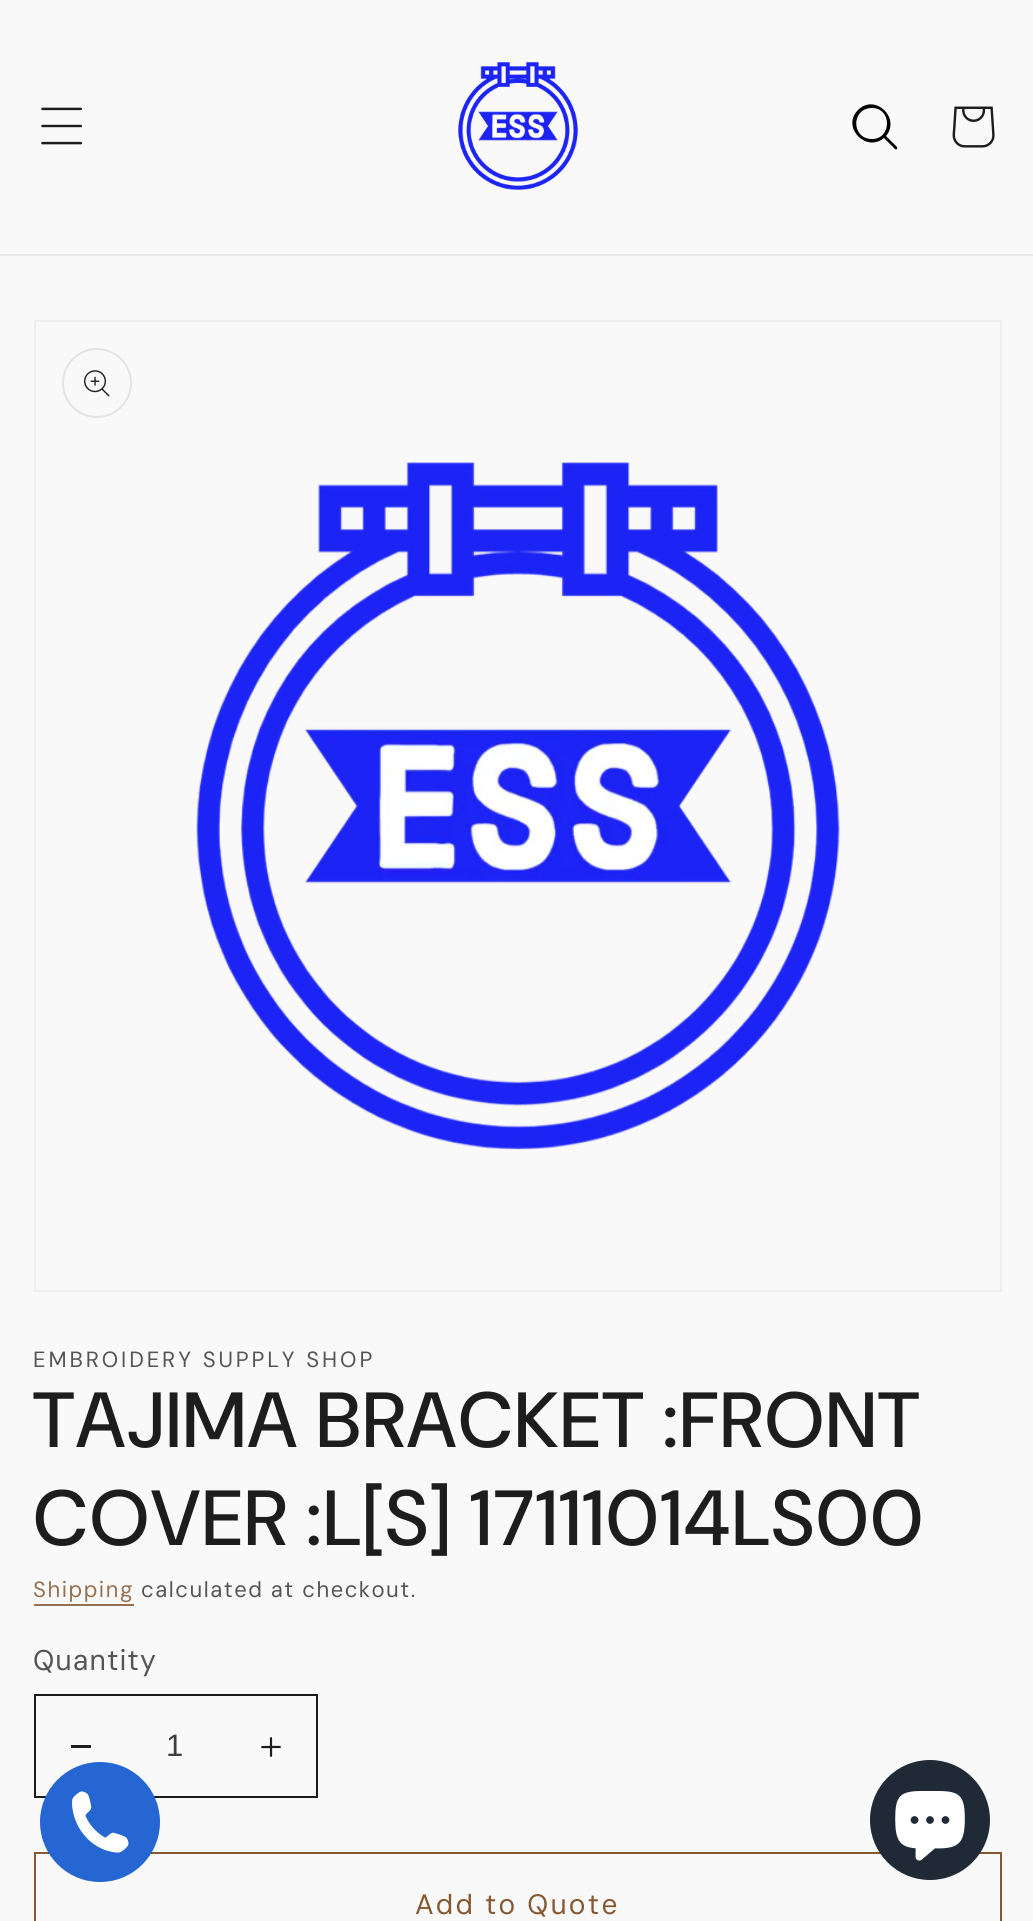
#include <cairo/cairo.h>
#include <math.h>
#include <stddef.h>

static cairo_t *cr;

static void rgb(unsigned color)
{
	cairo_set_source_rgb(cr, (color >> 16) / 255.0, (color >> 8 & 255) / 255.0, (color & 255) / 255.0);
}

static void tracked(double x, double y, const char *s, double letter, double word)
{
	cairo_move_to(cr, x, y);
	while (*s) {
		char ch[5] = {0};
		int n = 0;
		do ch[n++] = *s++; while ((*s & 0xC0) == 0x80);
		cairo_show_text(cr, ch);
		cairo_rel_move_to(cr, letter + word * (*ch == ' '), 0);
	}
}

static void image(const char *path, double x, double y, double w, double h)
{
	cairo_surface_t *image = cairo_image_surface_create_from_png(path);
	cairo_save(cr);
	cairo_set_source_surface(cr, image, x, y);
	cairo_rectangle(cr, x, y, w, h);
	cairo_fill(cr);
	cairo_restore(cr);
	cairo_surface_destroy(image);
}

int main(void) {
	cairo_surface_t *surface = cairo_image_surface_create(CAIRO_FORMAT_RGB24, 1033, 1921);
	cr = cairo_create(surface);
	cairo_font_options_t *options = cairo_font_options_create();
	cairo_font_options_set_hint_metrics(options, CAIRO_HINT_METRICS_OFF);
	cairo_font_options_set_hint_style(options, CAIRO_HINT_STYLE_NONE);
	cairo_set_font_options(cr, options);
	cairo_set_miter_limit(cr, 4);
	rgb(0xf9f9f9);
	cairo_paint(cr);
	rgb(0xe7e7e7);
	cairo_rectangle(cr, 0, 254, 1033, 2);
	cairo_fill(cr);
	image("img/1.png", 41, 107, 41, 38);
	image("img/2.png", 458, 62, 120, 128);
	rgb(0x000000);
	cairo_new_path(cr);
	cairo_move_to(cr, 884, 138);
	cairo_curve_to(cr, 866, 153, 841, 127, 858, 110);
	cairo_curve_to(cr, 875, 93, 901, 118, 886, 136);
	cairo_line_to(cr, 897, 147);
	cairo_curve_to(cr, 898, 149, 896, 150, 895, 149);
	cairo_close_path(cr);
	cairo_move_to(cr, 872, 108);
	cairo_curve_to(cr, 851, 108, 851, 139, 872, 139);
	cairo_curve_to(cr, 892, 139, 892, 108, 872, 108);
	cairo_close_path(cr);
	cairo_fill(cr);
	image("img/3.png", 952, 106, 43, 42);
	cairo_rectangle(cr, 35, 321, 966, 970);
	rgb(0xeeeeee);
	cairo_stroke(cr);
	image("img/4.png", 196, 462, 644, 688);
	cairo_arc(cr, 97, 383, 34, 0, 2 * M_PI);
	rgb(0xe3e3e3);
	cairo_stroke(cr);
	image("img/5.png", 84, 370, 26, 27);
	rgb(0x967050);
	cairo_rectangle(cr, 34, 1604, 100, 2);
	cairo_fill(cr);
	rgb(0x1d1d1d);
	cairo_rectangle(cr, 71, 1745, 20, 3);
	cairo_fill(cr);
	image("img/6.png", 261, 1737, 20, 20);
	cairo_rectangle(cr, 35, 1695, 282, 102);
	cairo_stroke(cr);
	cairo_rectangle(cr, 35, 1853, 966, 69);
	rgb(0x855832);
	cairo_stroke(cr);
	rgb(0x202a36);
	cairo_arc(cr, 930, 1820, 60, 0, 2 * M_PI);
	cairo_fill(cr);
	image("img/7.png", 895, 1791, 70, 70);
	rgb(0x2566d3);
	cairo_arc(cr, 100, 1822, 60, 0, 2 * M_PI);
	cairo_fill(cr);
	image("img/8.png", 72, 1791, 57, 62);
	cairo_select_font_face(cr, "DM Sans", CAIRO_FONT_SLANT_NORMAL, CAIRO_FONT_WEIGHT_NORMAL);
	cairo_set_font_size(cr, 22);
	rgb(0x545454);
	tracked(33, 1367, "EMBROIDERY SUPPLY SHOP", 2.9, 0);
	cairo_select_font_face(cr, "DM Sans Medium", CAIRO_FONT_SLANT_NORMAL, CAIRO_FONT_WEIGHT_NORMAL);
	cairo_set_font_size(cr, 78);
	rgb(0x1d1d1d);
	tracked(33, 1447, "TAJIMA BRACKET :FRONT", 1.6, 0);
	tracked(33, 1545, "COVER :L[S] 17111014LS00", 1.6, 0);
	cairo_select_font_face(cr, "DM Sans", CAIRO_FONT_SLANT_NORMAL, CAIRO_FONT_WEIGHT_NORMAL);
	cairo_set_font_size(cr, 22);
	rgb(0x967050);
	tracked(33, 1597, "Shipping", 1.5, 0);
	rgb(0x545454);
	tracked(141, 1597, "calculated at checkout.", 1.5, 0);
	cairo_set_font_size(cr, 28.5);
	tracked(33, 1670, "Quantity", 1, 0);
	cairo_select_font_face(cr, "Liberation Sans", CAIRO_FONT_SLANT_NORMAL, CAIRO_FONT_WEIGHT_NORMAL);
	cairo_set_font_size(cr, 31);
	rgb(0x3e3e3e);
	cairo_move_to(cr, 166, 1756);
	cairo_show_text(cr, "1");
	cairo_select_font_face(cr, "DM Sans", CAIRO_FONT_SLANT_NORMAL, CAIRO_FONT_WEIGHT_NORMAL);
	cairo_set_font_size(cr, 28);
	rgb(0x855832);
	tracked(415, 1914, "Add to Quote", 2.25, 0);
	cairo_surface_write_to_png(surface, "page.png");
	cairo_font_options_destroy(options);
	cairo_destroy(cr);
	cairo_surface_destroy(surface);
	return 0;
}
